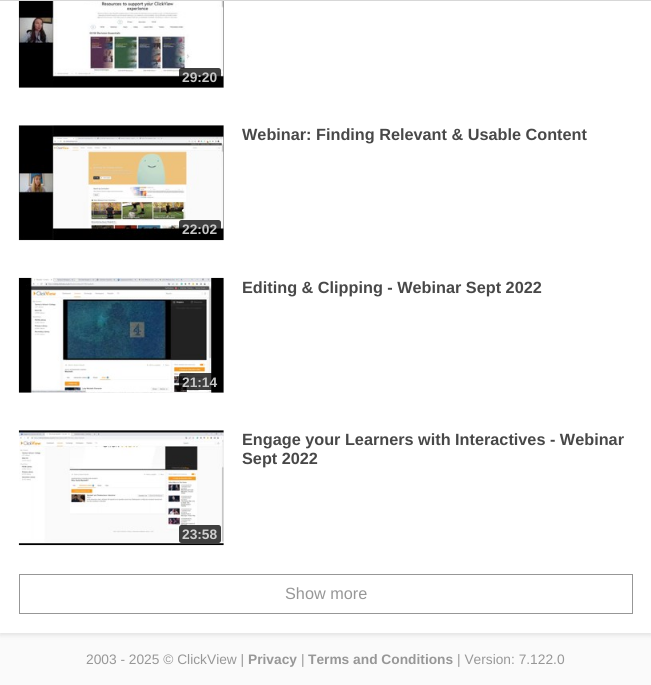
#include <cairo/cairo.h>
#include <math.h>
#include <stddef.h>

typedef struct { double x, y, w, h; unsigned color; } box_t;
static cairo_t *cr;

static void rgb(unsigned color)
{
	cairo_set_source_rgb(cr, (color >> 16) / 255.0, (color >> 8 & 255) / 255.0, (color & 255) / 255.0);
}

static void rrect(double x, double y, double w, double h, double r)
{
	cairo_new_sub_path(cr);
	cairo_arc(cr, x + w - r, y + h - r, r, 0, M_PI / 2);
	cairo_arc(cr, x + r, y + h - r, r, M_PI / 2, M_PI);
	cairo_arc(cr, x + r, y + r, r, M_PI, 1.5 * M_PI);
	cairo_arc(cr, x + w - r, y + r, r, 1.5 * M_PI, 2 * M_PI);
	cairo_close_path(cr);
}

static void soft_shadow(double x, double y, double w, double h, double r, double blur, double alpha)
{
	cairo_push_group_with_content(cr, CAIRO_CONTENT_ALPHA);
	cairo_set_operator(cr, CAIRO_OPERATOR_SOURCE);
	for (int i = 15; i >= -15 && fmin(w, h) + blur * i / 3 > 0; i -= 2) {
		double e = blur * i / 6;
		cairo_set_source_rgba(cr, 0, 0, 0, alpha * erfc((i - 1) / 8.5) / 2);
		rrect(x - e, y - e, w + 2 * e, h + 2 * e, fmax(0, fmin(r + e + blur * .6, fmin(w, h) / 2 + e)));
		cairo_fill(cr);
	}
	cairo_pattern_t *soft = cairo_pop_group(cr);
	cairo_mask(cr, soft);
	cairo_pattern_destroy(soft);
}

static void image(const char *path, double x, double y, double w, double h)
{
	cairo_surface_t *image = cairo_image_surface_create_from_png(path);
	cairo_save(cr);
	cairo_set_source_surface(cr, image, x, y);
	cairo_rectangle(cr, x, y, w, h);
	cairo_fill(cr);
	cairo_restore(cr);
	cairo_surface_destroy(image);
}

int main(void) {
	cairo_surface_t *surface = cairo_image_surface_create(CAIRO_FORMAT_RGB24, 651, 685);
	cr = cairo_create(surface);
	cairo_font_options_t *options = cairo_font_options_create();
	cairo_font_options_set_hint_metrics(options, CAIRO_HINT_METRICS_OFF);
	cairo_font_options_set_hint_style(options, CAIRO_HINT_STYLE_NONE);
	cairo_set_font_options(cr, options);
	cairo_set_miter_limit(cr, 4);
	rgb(0xfafafa);
	cairo_paint(cr);
	rgb(0x000000);
	soft_shadow(0, -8, 651, 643, 0, 2.5, 0.1);
	{
		static const box_t items[] = {
			{0, 0, 651, 1, 0xd7d7d7},
			{0, 1, 651, 632, 0xffffff},
			{19, 1, 205, 87, 0xececec},
		};
		for (size_t i = 0; i < sizeof items / sizeof *items; i++) {
			rgb(items[i].color);
			cairo_rectangle(cr, items[i].x, items[i].y, items[i].w, items[i].h);
			cairo_fill(cr);
		}
	}
	image("img/1.png", 18, 1, 206, 87);
	cairo_set_source_rgba(cr, 0, 0, 0, 0.75);
	rrect(179, 68, 42, 17, 2.5);
	cairo_fill(cr);
	rgb(0xececec);
	cairo_rectangle(cr, 19, 125, 205, 115);
	cairo_fill(cr);
	image("img/2.png", 18, 125, 206, 116);
	cairo_set_source_rgba(cr, 0, 0, 0, 0.75);
	rrect(179, 220, 42, 18, 2.5);
	cairo_fill(cr);
	rgb(0xececec);
	cairo_rectangle(cr, 19, 278, 205, 115);
	cairo_fill(cr);
	image("img/3.png", 18, 277, 206, 116);
	cairo_set_source_rgba(cr, 0, 0, 0, 0.75);
	rrect(179, 373, 42, 17, 2.5);
	cairo_fill(cr);
	rgb(0xececec);
	cairo_rectangle(cr, 19, 430, 205, 115);
	cairo_fill(cr);
	image("img/4.png", 18, 430, 206, 116);
	cairo_set_source_rgba(cr, 0, 0, 0, 0.75);
	rrect(179, 525, 42, 18, 2.5);
	cairo_fill(cr);
	cairo_rectangle(cr, 19.5, 574.5, 613, 39);
	rgb(0x979797);
	cairo_set_line_width(cr, 1);
	cairo_stroke(cr);
	cairo_select_font_face(cr, "Liberation Sans", CAIRO_FONT_SLANT_NORMAL, CAIRO_FONT_WEIGHT_BOLD);
	cairo_set_font_size(cr, 13.75);
	rgb(0xc6c6c6);
	cairo_move_to(cr, 182, 82);
	cairo_show_text(cr, "29:20");
	cairo_set_font_size(cr, 16.25);
	rgb(0x484848);
	cairo_move_to(cr, 242, 140);
	cairo_show_text(cr, "Webinar: Finding Relevant & Usable Content");
	cairo_set_font_size(cr, 13.75);
	rgb(0xc6c6c6);
	cairo_move_to(cr, 182, 234);
	cairo_show_text(cr, "22:02");
	cairo_set_font_size(cr, 16.25);
	rgb(0x484848);
	cairo_move_to(cr, 242, 293);
	cairo_show_text(cr, "Editing & Clipping - Webinar Sept 2022");
	cairo_set_font_size(cr, 13.75);
	rgb(0xc6c6c6);
	cairo_move_to(cr, 182, 387);
	cairo_show_text(cr, "21:14");
	cairo_set_font_size(cr, 16.25);
	rgb(0x484848);
	cairo_move_to(cr, 242, 445);
	cairo_show_text(cr, "Engage your Learners with Interactives - Webinar");
	cairo_move_to(cr, 242, 464);
	cairo_show_text(cr, "Sept 2022");
	cairo_set_font_size(cr, 13.75);
	rgb(0xcfcfcf);
	cairo_move_to(cr, 182, 539);
	cairo_show_text(cr, "23:58");
	cairo_select_font_face(cr, "Liberation Sans", CAIRO_FONT_SLANT_NORMAL, CAIRO_FONT_WEIGHT_NORMAL);
	cairo_set_font_size(cr, 16.25);
	rgb(0x979797);
	cairo_move_to(cr, 285, 599);
	cairo_show_text(cr, "Show more");
	cairo_set_font_size(cr, 13.75);
	cairo_move_to(cr, 86, 664);
	cairo_show_text(cr, "2003 - 2025 © ClickView |");
	cairo_select_font_face(cr, "Liberation Sans", CAIRO_FONT_SLANT_NORMAL, CAIRO_FONT_WEIGHT_BOLD);
	cairo_move_to(cr, 248, 664);
	cairo_show_text(cr, "Privacy");
	cairo_select_font_face(cr, "Liberation Sans", CAIRO_FONT_SLANT_NORMAL, CAIRO_FONT_WEIGHT_NORMAL);
	cairo_move_to(cr, 301, 664);
	cairo_show_text(cr, "|");
	cairo_select_font_face(cr, "Liberation Sans", CAIRO_FONT_SLANT_NORMAL, CAIRO_FONT_WEIGHT_BOLD);
	cairo_move_to(cr, 308, 664);
	cairo_show_text(cr, "Terms and Conditions");
	cairo_select_font_face(cr, "Liberation Sans", CAIRO_FONT_SLANT_NORMAL, CAIRO_FONT_WEIGHT_NORMAL);
	cairo_move_to(cr, 457, 664);
	cairo_show_text(cr, "| Version: 7.122.0");
	cairo_surface_write_to_png(surface, "page.png");
	cairo_font_options_destroy(options);
	cairo_destroy(cr);
	cairo_surface_destroy(surface);
	return 0;
}
